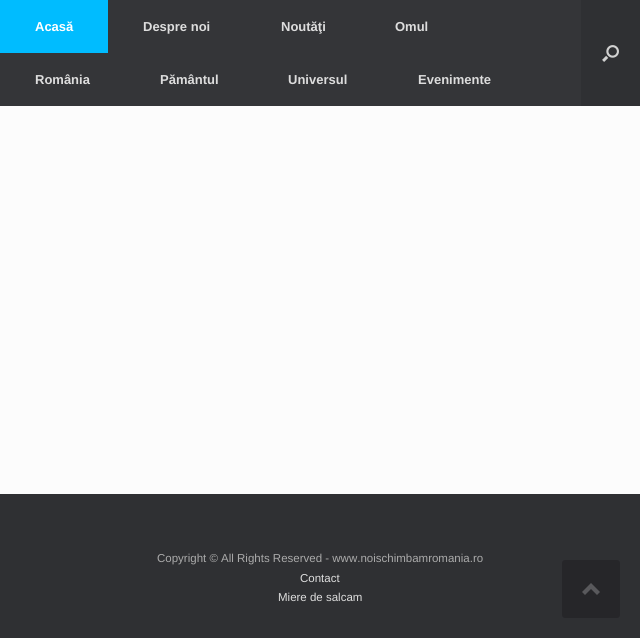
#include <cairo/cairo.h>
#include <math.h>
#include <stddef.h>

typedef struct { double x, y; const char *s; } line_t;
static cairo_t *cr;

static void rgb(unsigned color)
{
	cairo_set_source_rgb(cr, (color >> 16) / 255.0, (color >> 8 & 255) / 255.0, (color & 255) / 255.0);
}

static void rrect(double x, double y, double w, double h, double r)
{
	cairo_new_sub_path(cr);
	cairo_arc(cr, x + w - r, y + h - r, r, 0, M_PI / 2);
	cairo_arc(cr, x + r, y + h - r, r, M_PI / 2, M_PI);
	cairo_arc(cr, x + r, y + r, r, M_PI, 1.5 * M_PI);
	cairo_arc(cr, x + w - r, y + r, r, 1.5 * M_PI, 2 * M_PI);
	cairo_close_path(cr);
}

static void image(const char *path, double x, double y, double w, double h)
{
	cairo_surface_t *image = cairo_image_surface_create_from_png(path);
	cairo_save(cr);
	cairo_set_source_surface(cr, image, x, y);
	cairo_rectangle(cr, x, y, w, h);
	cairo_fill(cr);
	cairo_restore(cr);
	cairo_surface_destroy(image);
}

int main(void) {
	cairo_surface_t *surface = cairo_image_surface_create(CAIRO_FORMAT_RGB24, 640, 638);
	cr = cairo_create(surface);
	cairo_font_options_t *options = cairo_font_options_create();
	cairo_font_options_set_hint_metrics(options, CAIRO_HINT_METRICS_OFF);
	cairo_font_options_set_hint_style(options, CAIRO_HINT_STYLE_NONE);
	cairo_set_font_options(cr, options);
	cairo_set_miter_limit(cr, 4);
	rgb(0x2f3033);
	cairo_paint(cr);
	rgb(0x343538);
	cairo_rectangle(cr, 0, 0, 581, 106);
	cairo_fill(cr);
	rgb(0x00bcff);
	cairo_rectangle(cr, 0, 0, 108, 53);
	cairo_fill(cr);
	image("img/1.png", 602, 45, 17, 17);
	rgb(0xfcfcfc);
	cairo_rectangle(cr, 0, 106, 640, 388);
	cairo_fill(cr);
	rgb(0x262629);
	rrect(562, 560, 58, 58, 3);
	cairo_fill(cr);
	rgb(0x59595c);
	cairo_new_path(cr);
	cairo_move_to(cr, 600, 592);
	cairo_line_to(cr, 591, 583);
	cairo_line_to(cr, 582, 592);
	cairo_line_to(cr, 585, 595);
	cairo_line_to(cr, 591, 589);
	cairo_line_to(cr, 597, 595);
	cairo_close_path(cr);
	cairo_fill(cr);
	cairo_select_font_face(cr, "Liberation Sans", CAIRO_FONT_SLANT_NORMAL, CAIRO_FONT_WEIGHT_BOLD);
	cairo_set_font_size(cr, 13);
	rgb(0xffffff);
	cairo_move_to(cr, 35, 31);
	cairo_show_text(cr, "Acasă");
	rgb(0xdddddd);
	{
		static const line_t items[] = {
			{143, 31, "Despre noi"},
			{281, 31, "Noutăţi"},
			{395, 31, "Omul"},
			{35, 84, "România"},
			{160, 84, "Pământul"},
			{288, 84, "Universul"},
			{418, 84, "Evenimente"},
		};
		for (size_t i = 0; i < sizeof items / sizeof *items; i++) {
			cairo_move_to(cr, items[i].x, items[i].y);
			cairo_show_text(cr, items[i].s);
		}
	}
	cairo_select_font_face(cr, "Liberation Sans", CAIRO_FONT_SLANT_NORMAL, CAIRO_FONT_WEIGHT_NORMAL);
	cairo_set_font_size(cr, 11.5);
	rgb(0xaaaaaa);
	cairo_move_to(cr, 157, 562);
	cairo_show_text(cr, "Copyright © All Rights Reserved - www.noischimbamromania.ro");
	rgb(0xdddddd);
	cairo_move_to(cr, 300, 582);
	cairo_show_text(cr, "Contact");
	cairo_move_to(cr, 278, 601);
	cairo_show_text(cr, "Miere de salcam");
	cairo_surface_write_to_png(surface, "page.png");
	cairo_font_options_destroy(options);
	cairo_destroy(cr);
	cairo_surface_destroy(surface);
	return 0;
}
